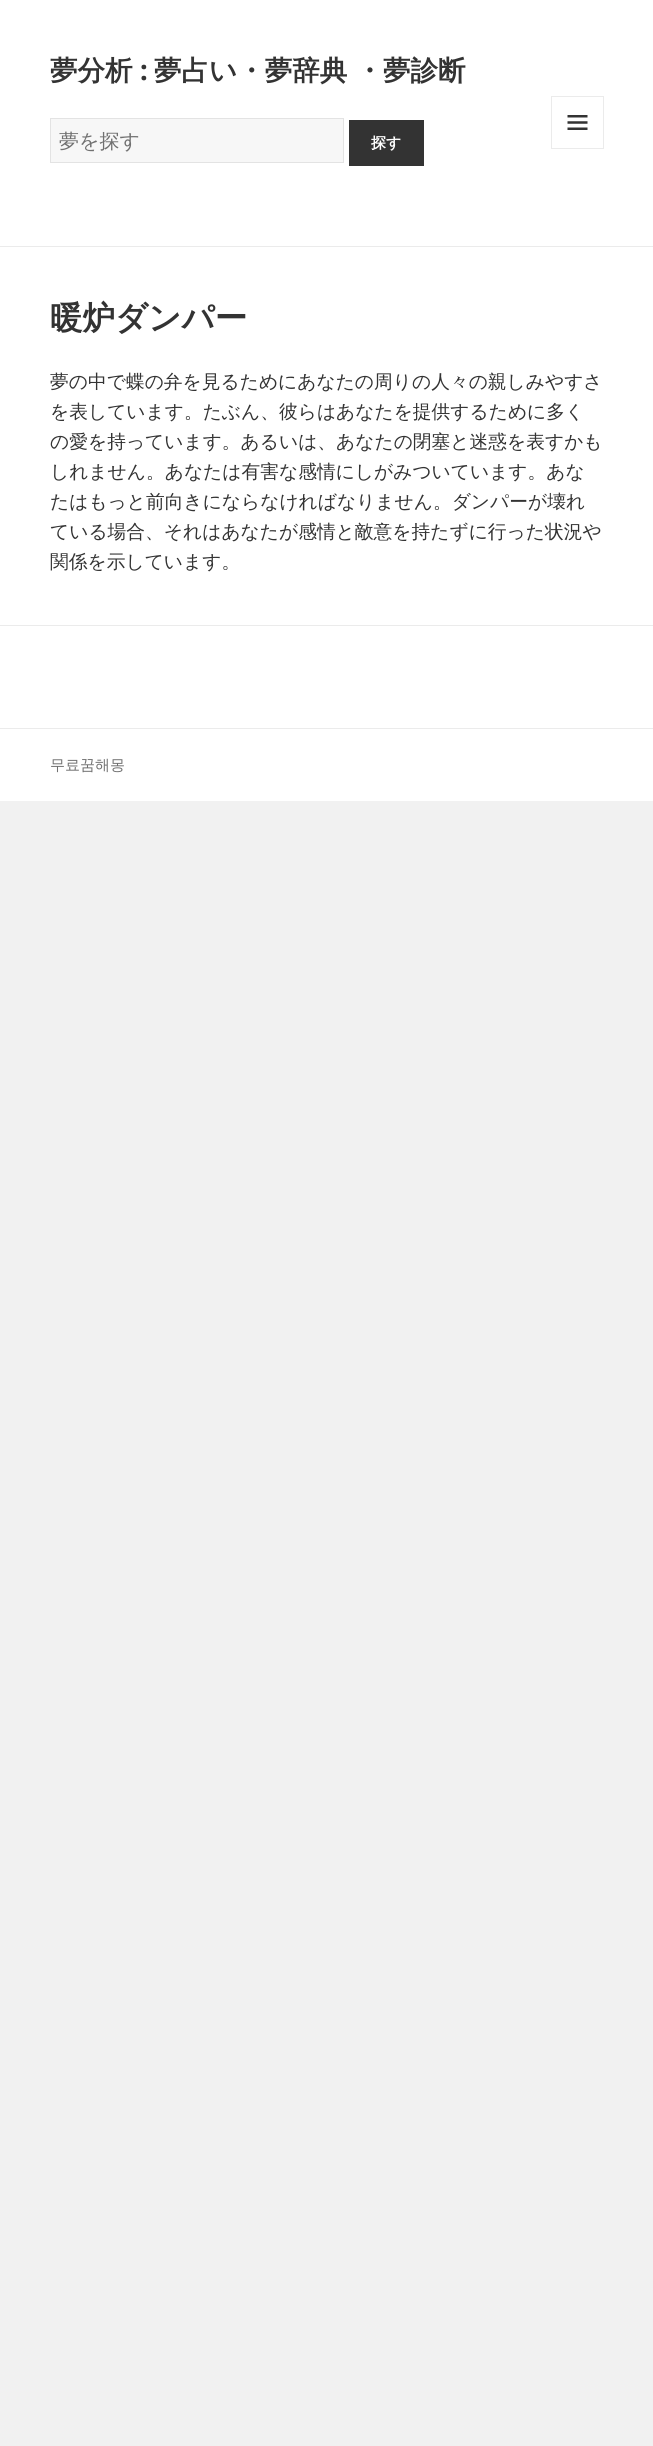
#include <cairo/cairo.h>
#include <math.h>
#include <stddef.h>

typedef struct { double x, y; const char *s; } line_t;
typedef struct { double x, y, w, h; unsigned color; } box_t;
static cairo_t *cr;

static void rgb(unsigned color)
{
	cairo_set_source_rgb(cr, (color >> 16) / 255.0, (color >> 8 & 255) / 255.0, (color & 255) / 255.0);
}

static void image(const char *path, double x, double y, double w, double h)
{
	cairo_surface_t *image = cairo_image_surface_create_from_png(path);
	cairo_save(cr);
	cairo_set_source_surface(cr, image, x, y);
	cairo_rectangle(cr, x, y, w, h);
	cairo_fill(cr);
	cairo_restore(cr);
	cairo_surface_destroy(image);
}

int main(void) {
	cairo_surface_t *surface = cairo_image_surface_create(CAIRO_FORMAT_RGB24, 653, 2446);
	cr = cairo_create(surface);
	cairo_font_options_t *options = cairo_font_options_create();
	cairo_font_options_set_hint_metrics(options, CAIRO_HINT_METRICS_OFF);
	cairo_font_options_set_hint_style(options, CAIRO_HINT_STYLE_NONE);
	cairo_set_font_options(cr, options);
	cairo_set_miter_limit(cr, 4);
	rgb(0xf1f1f1);
	cairo_paint(cr);
	rgb(0xffffff);
	cairo_rectangle(cr, 0, 0, 653, 625);
	cairo_fill(cr);
	rgb(0xebebeb);
	cairo_rectangle(cr, 0, 246, 653, 1);
	cairo_fill(cr);
	rgb(0xf7f7f7);
	cairo_rectangle(cr, 50.5, 118.5, 293, 44);
	cairo_fill_preserve(cr);
	rgb(0xe3e3e3);
	cairo_set_line_width(cr, 1);
	cairo_stroke(cr);
	rgb(0x333333);
	cairo_rectangle(cr, 349, 120, 75, 46);
	cairo_fill(cr);
	cairo_rectangle(cr, 551.5, 96.5, 52, 52);
	rgb(0xebebeb);
	cairo_stroke(cr);
	image("img/1.png", 567, 115, 21, 15);
	{
		static const box_t items[] = {
			{0, 626, 653, 102, 0xffffff},
			{0, 625, 653, 1, 0xebebeb},
			{0, 729, 653, 72, 0xffffff},
			{0, 728, 653, 1, 0xebebeb},
		};
		for (size_t i = 0; i < sizeof items / sizeof *items; i++) {
			rgb(items[i].color);
			cairo_rectangle(cr, items[i].x, items[i].y, items[i].w, items[i].h);
			cairo_fill(cr);
		}
	}
	cairo_select_font_face(cr, "WenQuanYi Zen Hei", CAIRO_FONT_SLANT_NORMAL, CAIRO_FONT_WEIGHT_BOLD);
	cairo_set_font_size(cr, 27.5);
	rgb(0x333333);
	cairo_move_to(cr, 50, 80);
	cairo_show_text(cr, "夢分析");
	cairo_select_font_face(cr, "Noto Sans", CAIRO_FONT_SLANT_NORMAL, CAIRO_FONT_WEIGHT_BOLD);
	cairo_move_to(cr, 140, 80);
	cairo_show_text(cr, ":");
	cairo_select_font_face(cr, "WenQuanYi Zen Hei", CAIRO_FONT_SLANT_NORMAL, CAIRO_FONT_WEIGHT_BOLD);
	cairo_move_to(cr, 154, 80);
	cairo_show_text(cr, "夢占い・夢辞典 ・夢診断");
	cairo_select_font_face(cr, "WenQuanYi Zen Hei Medium", CAIRO_FONT_SLANT_NORMAL, CAIRO_FONT_WEIGHT_NORMAL);
	cairo_set_font_size(cr, 20);
	rgb(0x707070);
	cairo_move_to(cr, 59, 148);
	cairo_show_text(cr, "夢を探す");
	cairo_select_font_face(cr, "WenQuanYi Zen Hei", CAIRO_FONT_SLANT_NORMAL, CAIRO_FONT_WEIGHT_BOLD);
	cairo_set_font_size(cr, 15);
	rgb(0xffffff);
	cairo_move_to(cr, 371, 148);
	cairo_show_text(cr, "探す");
	cairo_set_font_size(cr, 32.5);
	rgb(0x333333);
	cairo_move_to(cr, 50, 329);
	cairo_show_text(cr, "暖炉ダンパー");
	cairo_select_font_face(cr, "WenQuanYi Zen Hei Medium", CAIRO_FONT_SLANT_NORMAL, CAIRO_FONT_WEIGHT_NORMAL);
	cairo_set_font_size(cr, 18.75);
	{
		static const line_t items[] = {
			{50, 388, "夢の中で蝶の弁を見るためにあなたの周りの人々の親しみやすさ"},
			{50, 418, "を表しています。たぶん、彼らはあなたを提供するために多く"},
			{50, 448, "の愛を持っています。あるいは、あなたの閉塞と迷惑を表すかも"},
			{50, 478, "しれません。あなたは有害な感情にしがみついています。あな"},
			{50, 508, "たはもっと前向きにならなければなりません。ダンパーが壊れ"},
			{50, 538, "ている場合、それはあなたが感情と敵意を持たずに行った状況や"},
			{50, 568, "関係を示しています。"},
		};
		for (size_t i = 0; i < sizeof items / sizeof *items; i++) {
			cairo_move_to(cr, items[i].x, items[i].y);
			cairo_show_text(cr, items[i].s);
		}
	}
	cairo_set_font_size(cr, 15);
	rgb(0x707070);
	cairo_move_to(cr, 50, 770);
	cairo_show_text(cr, "무료꿈해몽");
	cairo_surface_write_to_png(surface, "page.png");
	cairo_font_options_destroy(options);
	cairo_destroy(cr);
	cairo_surface_destroy(surface);
	return 0;
}
